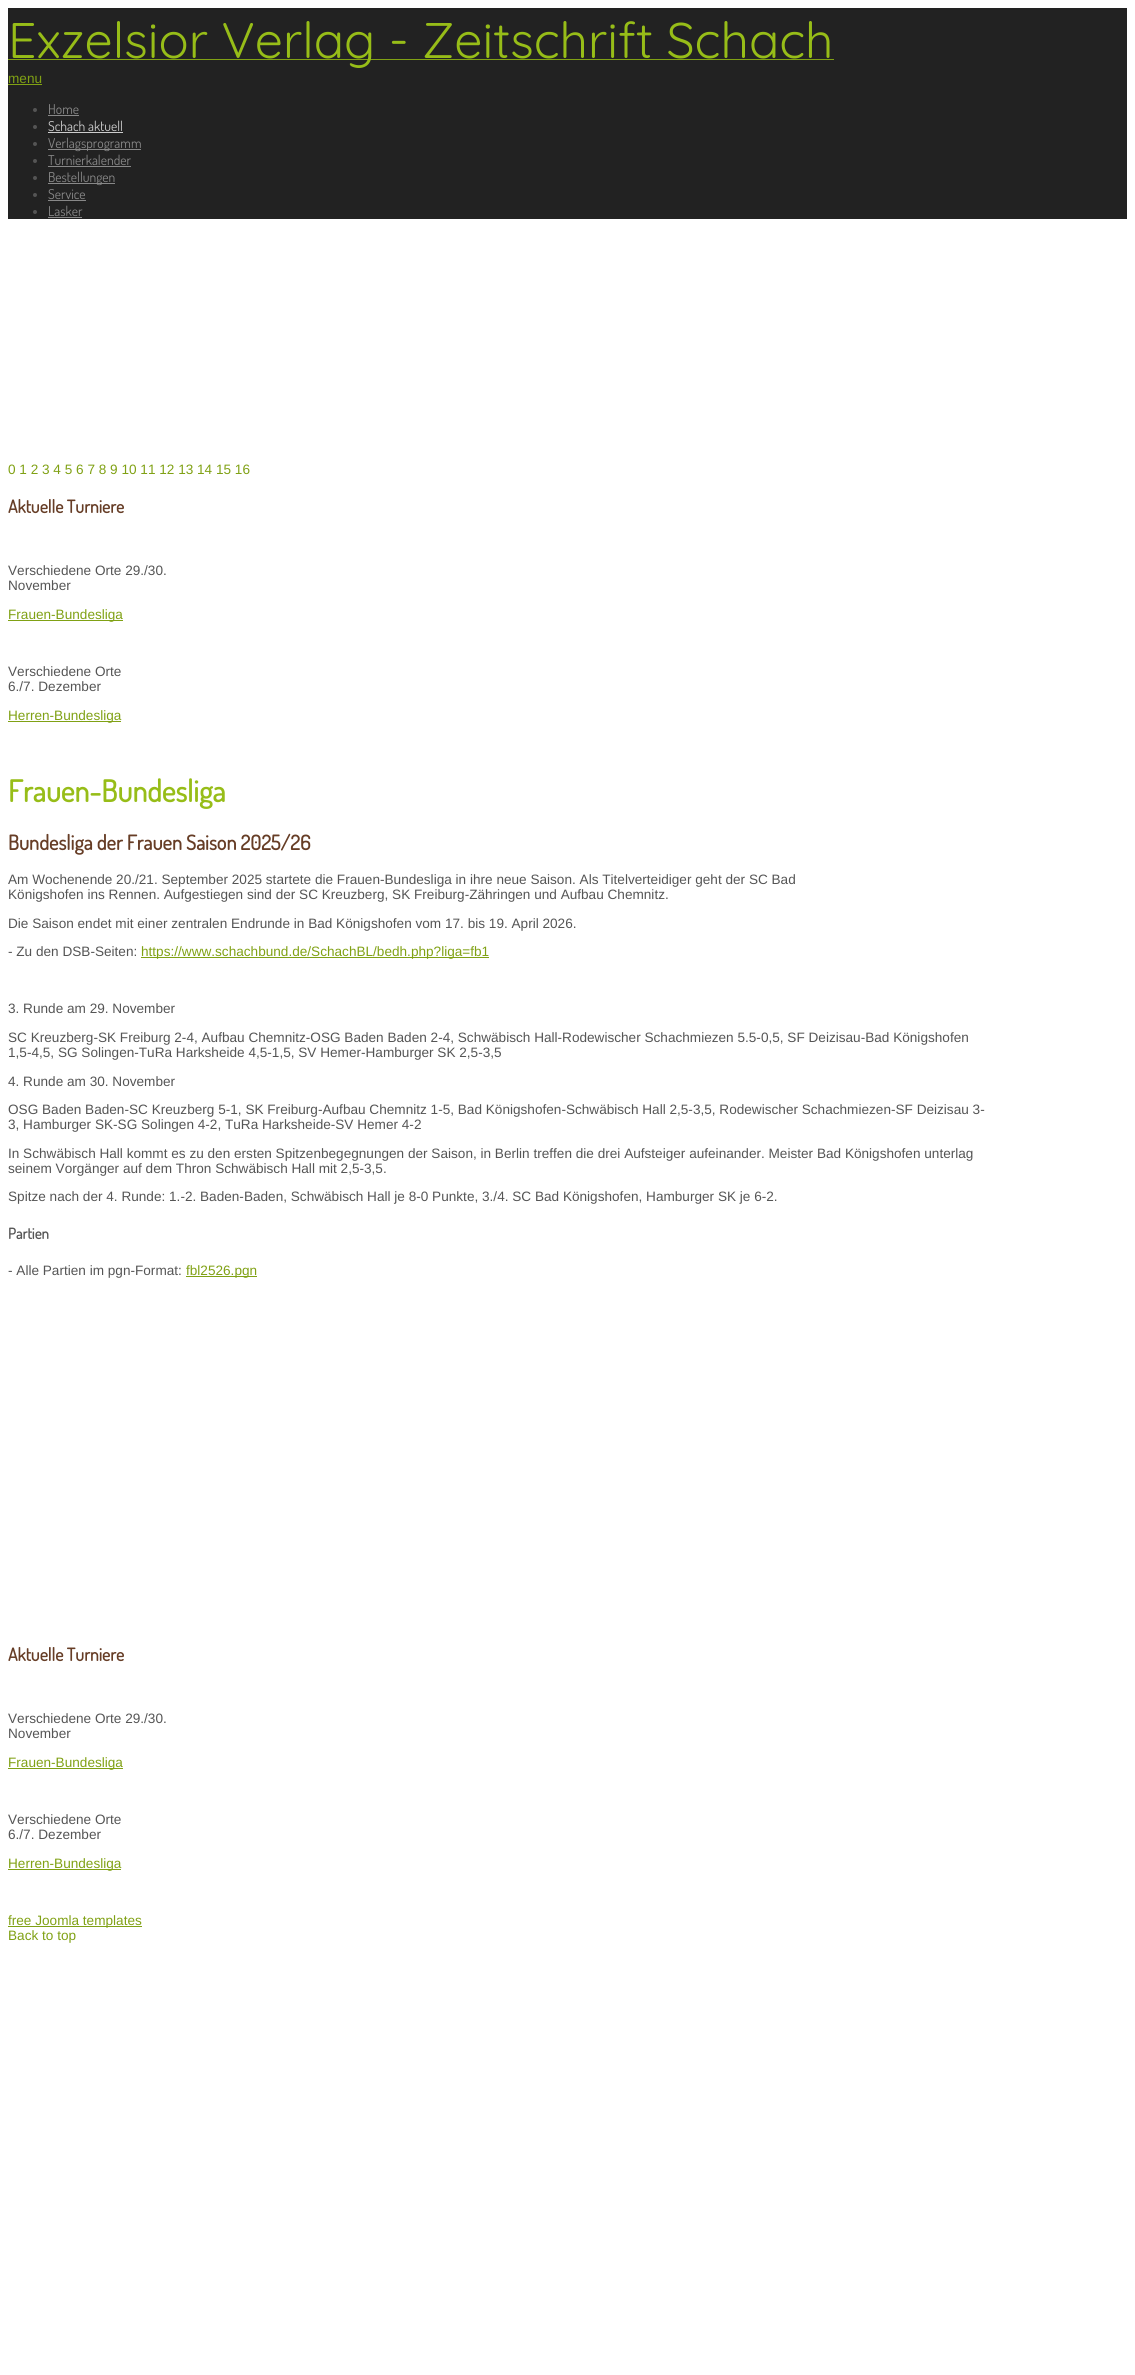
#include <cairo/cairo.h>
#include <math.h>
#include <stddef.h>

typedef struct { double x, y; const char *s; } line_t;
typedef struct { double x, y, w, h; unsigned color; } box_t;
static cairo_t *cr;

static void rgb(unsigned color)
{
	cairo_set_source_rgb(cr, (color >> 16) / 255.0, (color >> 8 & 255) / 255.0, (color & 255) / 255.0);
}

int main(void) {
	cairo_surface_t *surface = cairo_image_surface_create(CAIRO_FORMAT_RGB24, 1135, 2375);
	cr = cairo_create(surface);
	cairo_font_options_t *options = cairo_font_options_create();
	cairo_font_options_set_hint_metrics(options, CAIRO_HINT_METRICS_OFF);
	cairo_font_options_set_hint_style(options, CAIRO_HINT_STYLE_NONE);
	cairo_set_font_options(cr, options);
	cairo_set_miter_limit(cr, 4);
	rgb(0xffffff);
	cairo_paint(cr);
	{
		static const box_t items[] = {
			{8, 8, 1119, 211, 0x222222},
			{8, 59, 826, 1, 0x80a114},
			{8, 84, 34, 1, 0x80a114},
		};
		for (size_t i = 0; i < sizeof items / sizeof *items; i++) {
			rgb(items[i].color);
			cairo_rectangle(cr, items[i].x, items[i].y, items[i].w, items[i].h);
			cairo_fill(cr);
		}
	}
	rgb(0x555555);
	cairo_arc(cr, 35, 110, 2, 0, 2 * M_PI);
	cairo_fill(cr);
	rgb(0x888888);
	cairo_rectangle(cr, 48, 115, 31, 1);
	cairo_fill(cr);
	rgb(0x555555);
	cairo_arc(cr, 35, 127, 2, 0, 2 * M_PI);
	cairo_fill(cr);
	rgb(0xcccccc);
	cairo_rectangle(cr, 48, 132, 75, 1);
	cairo_fill(cr);
	rgb(0x555555);
	cairo_arc(cr, 35, 144, 2, 0, 2 * M_PI);
	cairo_fill(cr);
	rgb(0x888888);
	cairo_rectangle(cr, 48, 149, 93, 1);
	cairo_fill(cr);
	rgb(0x555555);
	cairo_arc(cr, 35, 161, 2, 0, 2 * M_PI);
	cairo_fill(cr);
	rgb(0x888888);
	cairo_rectangle(cr, 48, 166, 83, 1);
	cairo_fill(cr);
	rgb(0x555555);
	cairo_arc(cr, 35, 178, 2, 0, 2 * M_PI);
	cairo_fill(cr);
	rgb(0x888888);
	cairo_rectangle(cr, 48, 183, 67, 1);
	cairo_fill(cr);
	rgb(0x555555);
	cairo_arc(cr, 35, 195, 2, 0, 2 * M_PI);
	cairo_fill(cr);
	rgb(0x888888);
	cairo_rectangle(cr, 48, 200, 38, 1);
	cairo_fill(cr);
	rgb(0x555555);
	cairo_arc(cr, 35, 212, 2, 0, 2 * M_PI);
	cairo_fill(cr);
	{
		static const box_t items[] = {
			{48, 217, 34, 1, 0x888888},
			{8, 620, 115, 1, 0x80a114},
			{8, 721, 113, 1, 0x80a114},
			{141, 957, 348, 1, 0x80a114},
			{186, 1276, 71, 1, 0x80a114},
			{8, 1768, 115, 1, 0x80a114},
			{8, 1869, 113, 1, 0x80a114},
			{8, 1926, 134, 1, 0x80a114},
		};
		for (size_t i = 0; i < sizeof items / sizeof *items; i++) {
			rgb(items[i].color);
			cairo_rectangle(cr, items[i].x, items[i].y, items[i].w, items[i].h);
			cairo_fill(cr);
		}
	}
	cairo_select_font_face(cr, "Quicksand Light", CAIRO_FONT_SLANT_NORMAL, CAIRO_FONT_WEIGHT_NORMAL);
	cairo_set_font_size(cr, 50);
	rgb(0x97bd18);
	cairo_move_to(cr, 8, 58);
	cairo_show_text(cr, "Exzelsior Verlag - Zeitschrift Schach");
	cairo_select_font_face(cr, "Liberation Sans", CAIRO_FONT_SLANT_NORMAL, CAIRO_FONT_WEIGHT_NORMAL);
	cairo_set_font_size(cr, 13.6);
	rgb(0x80a114);
	cairo_move_to(cr, 8, 83);
	cairo_show_text(cr, "menu");
	cairo_select_font_face(cr, "Dosis", CAIRO_FONT_SLANT_NORMAL, CAIRO_FONT_WEIGHT_NORMAL);
	rgb(0x888888);
	cairo_move_to(cr, 48, 114);
	cairo_show_text(cr, "Home");
	rgb(0xcccccc);
	cairo_move_to(cr, 48, 131);
	cairo_show_text(cr, "Schach aktuell");
	rgb(0x888888);
	{
		static const line_t items[] = {
			{48, 148, "Verlagsprogramm"},
			{48, 165, "Turnierkalender"},
			{48, 182, "Bestellungen"},
			{48, 199, "Service"},
			{48, 216, "Lasker"},
		};
		for (size_t i = 0; i < sizeof items / sizeof *items; i++) {
			cairo_move_to(cr, items[i].x, items[i].y);
			cairo_show_text(cr, items[i].s);
		}
	}
	cairo_select_font_face(cr, "Liberation Sans", CAIRO_FONT_SLANT_NORMAL, CAIRO_FONT_WEIGHT_NORMAL);
	rgb(0x80a114);
	cairo_move_to(cr, 8, 474);
	cairo_show_text(cr, "0 1 2 3 4 5 6 7 8 9 10 11 12 13 14 15 16");
	cairo_select_font_face(cr, "Dosis", CAIRO_FONT_SLANT_NORMAL, CAIRO_FONT_WEIGHT_BOLD);
	cairo_set_font_size(cr, 17.75);
	rgb(0x663d26);
	cairo_move_to(cr, 8, 513);
	cairo_show_text(cr, "Aktuelle Turniere");
	cairo_select_font_face(cr, "Liberation Sans", CAIRO_FONT_SLANT_NORMAL, CAIRO_FONT_WEIGHT_NORMAL);
	cairo_set_font_size(cr, 13.6);
	rgb(0x555555);
	cairo_move_to(cr, 8, 575);
	cairo_show_text(cr, "Verschiedene Orte 29./30.");
	cairo_move_to(cr, 8, 590);
	cairo_show_text(cr, "November");
	rgb(0x80a114);
	cairo_move_to(cr, 8, 619);
	cairo_show_text(cr, "Frauen-Bundesliga");
	rgb(0x555555);
	cairo_move_to(cr, 8, 676);
	cairo_show_text(cr, "Verschiedene Orte");
	cairo_move_to(cr, 8, 691);
	cairo_show_text(cr, "6./7. Dezember");
	rgb(0x80a114);
	cairo_move_to(cr, 8, 720);
	cairo_show_text(cr, "Herren-Bundesliga");
	cairo_select_font_face(cr, "Dosis", CAIRO_FONT_SLANT_NORMAL, CAIRO_FONT_WEIGHT_BOLD);
	cairo_set_font_size(cr, 30);
	rgb(0x97bd18);
	cairo_move_to(cr, 8, 802);
	cairo_show_text(cr, "Frauen-Bundesliga");
	cairo_set_font_size(cr, 20.4);
	rgb(0x663d26);
	cairo_move_to(cr, 8, 850);
	cairo_show_text(cr, "Bundesliga der Frauen Saison 2025/26");
	cairo_select_font_face(cr, "Liberation Sans", CAIRO_FONT_SLANT_NORMAL, CAIRO_FONT_WEIGHT_NORMAL);
	cairo_set_font_size(cr, 13.6);
	rgb(0x555555);
	{
		static const line_t items[] = {
			{8, 884, "Am Wochenende 20./21. September 2025 startete die Frauen-Bundesliga in ihre neue Saison. Als Titelverteidiger geht der SC Bad"},
			{8, 899, "Königshofen ins Rennen. Aufgestiegen sind der SC Kreuzberg, SK Freiburg-Zähringen und Aufbau Chemnitz."},
			{8, 928, "Die Saison endet mit einer zentralen Endrunde in Bad Königshofen vom 17. bis 19. April 2026."},
			{8, 956, "- Zu den DSB-Seiten:"},
		};
		for (size_t i = 0; i < sizeof items / sizeof *items; i++) {
			cairo_move_to(cr, items[i].x, items[i].y);
			cairo_show_text(cr, items[i].s);
		}
	}
	rgb(0x80a114);
	cairo_move_to(cr, 141, 956);
	cairo_show_text(cr, "https://www.schachbund.de/SchachBL/bedh.php?liga=fb1");
	rgb(0x555555);
	{
		static const line_t items[] = {
			{8, 1013, "3. Runde am 29. November"},
			{8, 1042, "SC Kreuzberg-SK Freiburg 2-4, Aufbau Chemnitz-OSG Baden Baden 2-4, Schwäbisch Hall-Rodewischer Schachmiezen 5.5-0,5, SF Deizisau-Bad Königshofen"},
			{8, 1057, "1,5-4,5, SG Solingen-TuRa Harksheide 4,5-1,5, SV Hemer-Hamburger SK 2,5-3,5"},
			{8, 1086, "4. Runde am 30. November"},
			{8, 1114, "OSG Baden Baden-SC Kreuzberg 5-1, SK Freiburg-Aufbau Chemnitz 1-5, Bad Königshofen-Schwäbisch Hall 2,5-3,5, Rodewischer Schachmiezen-SF Deizisau 3-"},
			{8, 1129, "3, Hamburger SK-SG Solingen 4-2, TuRa Harksheide-SV Hemer 4-2"},
			{8, 1158, "In Schwäbisch Hall kommt es zu den ersten Spitzenbegegnungen der Saison, in Berlin treffen die drei Aufsteiger aufeinander. Meister Bad Königshofen unterlag"},
			{8, 1173, "seinem Vorgänger auf dem Thron Schwäbisch Hall mit 2,5-3,5."},
			{8, 1201, "Spitze nach der 4. Runde: 1.-2. Baden-Baden, Schwäbisch Hall je 8-0 Punkte, 3./4. SC Bad Königshofen, Hamburger SK je 6-2."},
		};
		for (size_t i = 0; i < sizeof items / sizeof *items; i++) {
			cairo_move_to(cr, items[i].x, items[i].y);
			cairo_show_text(cr, items[i].s);
		}
	}
	cairo_select_font_face(cr, "Dosis", CAIRO_FONT_SLANT_NORMAL, CAIRO_FONT_WEIGHT_BOLD);
	cairo_set_font_size(cr, 15);
	cairo_move_to(cr, 8, 1239);
	cairo_show_text(cr, "Partien");
	cairo_select_font_face(cr, "Liberation Sans", CAIRO_FONT_SLANT_NORMAL, CAIRO_FONT_WEIGHT_NORMAL);
	cairo_set_font_size(cr, 13.6);
	cairo_move_to(cr, 8, 1275);
	cairo_show_text(cr, "- Alle Partien im pgn-Format:");
	rgb(0x80a114);
	cairo_move_to(cr, 186, 1275);
	cairo_show_text(cr, "fbl2526.pgn");
	cairo_select_font_face(cr, "Dosis", CAIRO_FONT_SLANT_NORMAL, CAIRO_FONT_WEIGHT_BOLD);
	cairo_set_font_size(cr, 17.75);
	rgb(0x663d26);
	cairo_move_to(cr, 8, 1661);
	cairo_show_text(cr, "Aktuelle Turniere");
	cairo_select_font_face(cr, "Liberation Sans", CAIRO_FONT_SLANT_NORMAL, CAIRO_FONT_WEIGHT_NORMAL);
	cairo_set_font_size(cr, 13.6);
	rgb(0x555555);
	cairo_move_to(cr, 8, 1723);
	cairo_show_text(cr, "Verschiedene Orte 29./30.");
	cairo_move_to(cr, 8, 1738);
	cairo_show_text(cr, "November");
	rgb(0x80a114);
	cairo_move_to(cr, 8, 1767);
	cairo_show_text(cr, "Frauen-Bundesliga");
	rgb(0x555555);
	cairo_move_to(cr, 8, 1824);
	cairo_show_text(cr, "Verschiedene Orte");
	cairo_move_to(cr, 8, 1839);
	cairo_show_text(cr, "6./7. Dezember");
	rgb(0x80a114);
	{
		static const line_t items[] = {
			{8, 1868, "Herren-Bundesliga"},
			{8, 1925, "free Joomla templates"},
			{8, 1940, "Back to top"},
		};
		for (size_t i = 0; i < sizeof items / sizeof *items; i++) {
			cairo_move_to(cr, items[i].x, items[i].y);
			cairo_show_text(cr, items[i].s);
		}
	}
	cairo_surface_write_to_png(surface, "page.png");
	cairo_font_options_destroy(options);
	cairo_destroy(cr);
	cairo_surface_destroy(surface);
	return 0;
}
